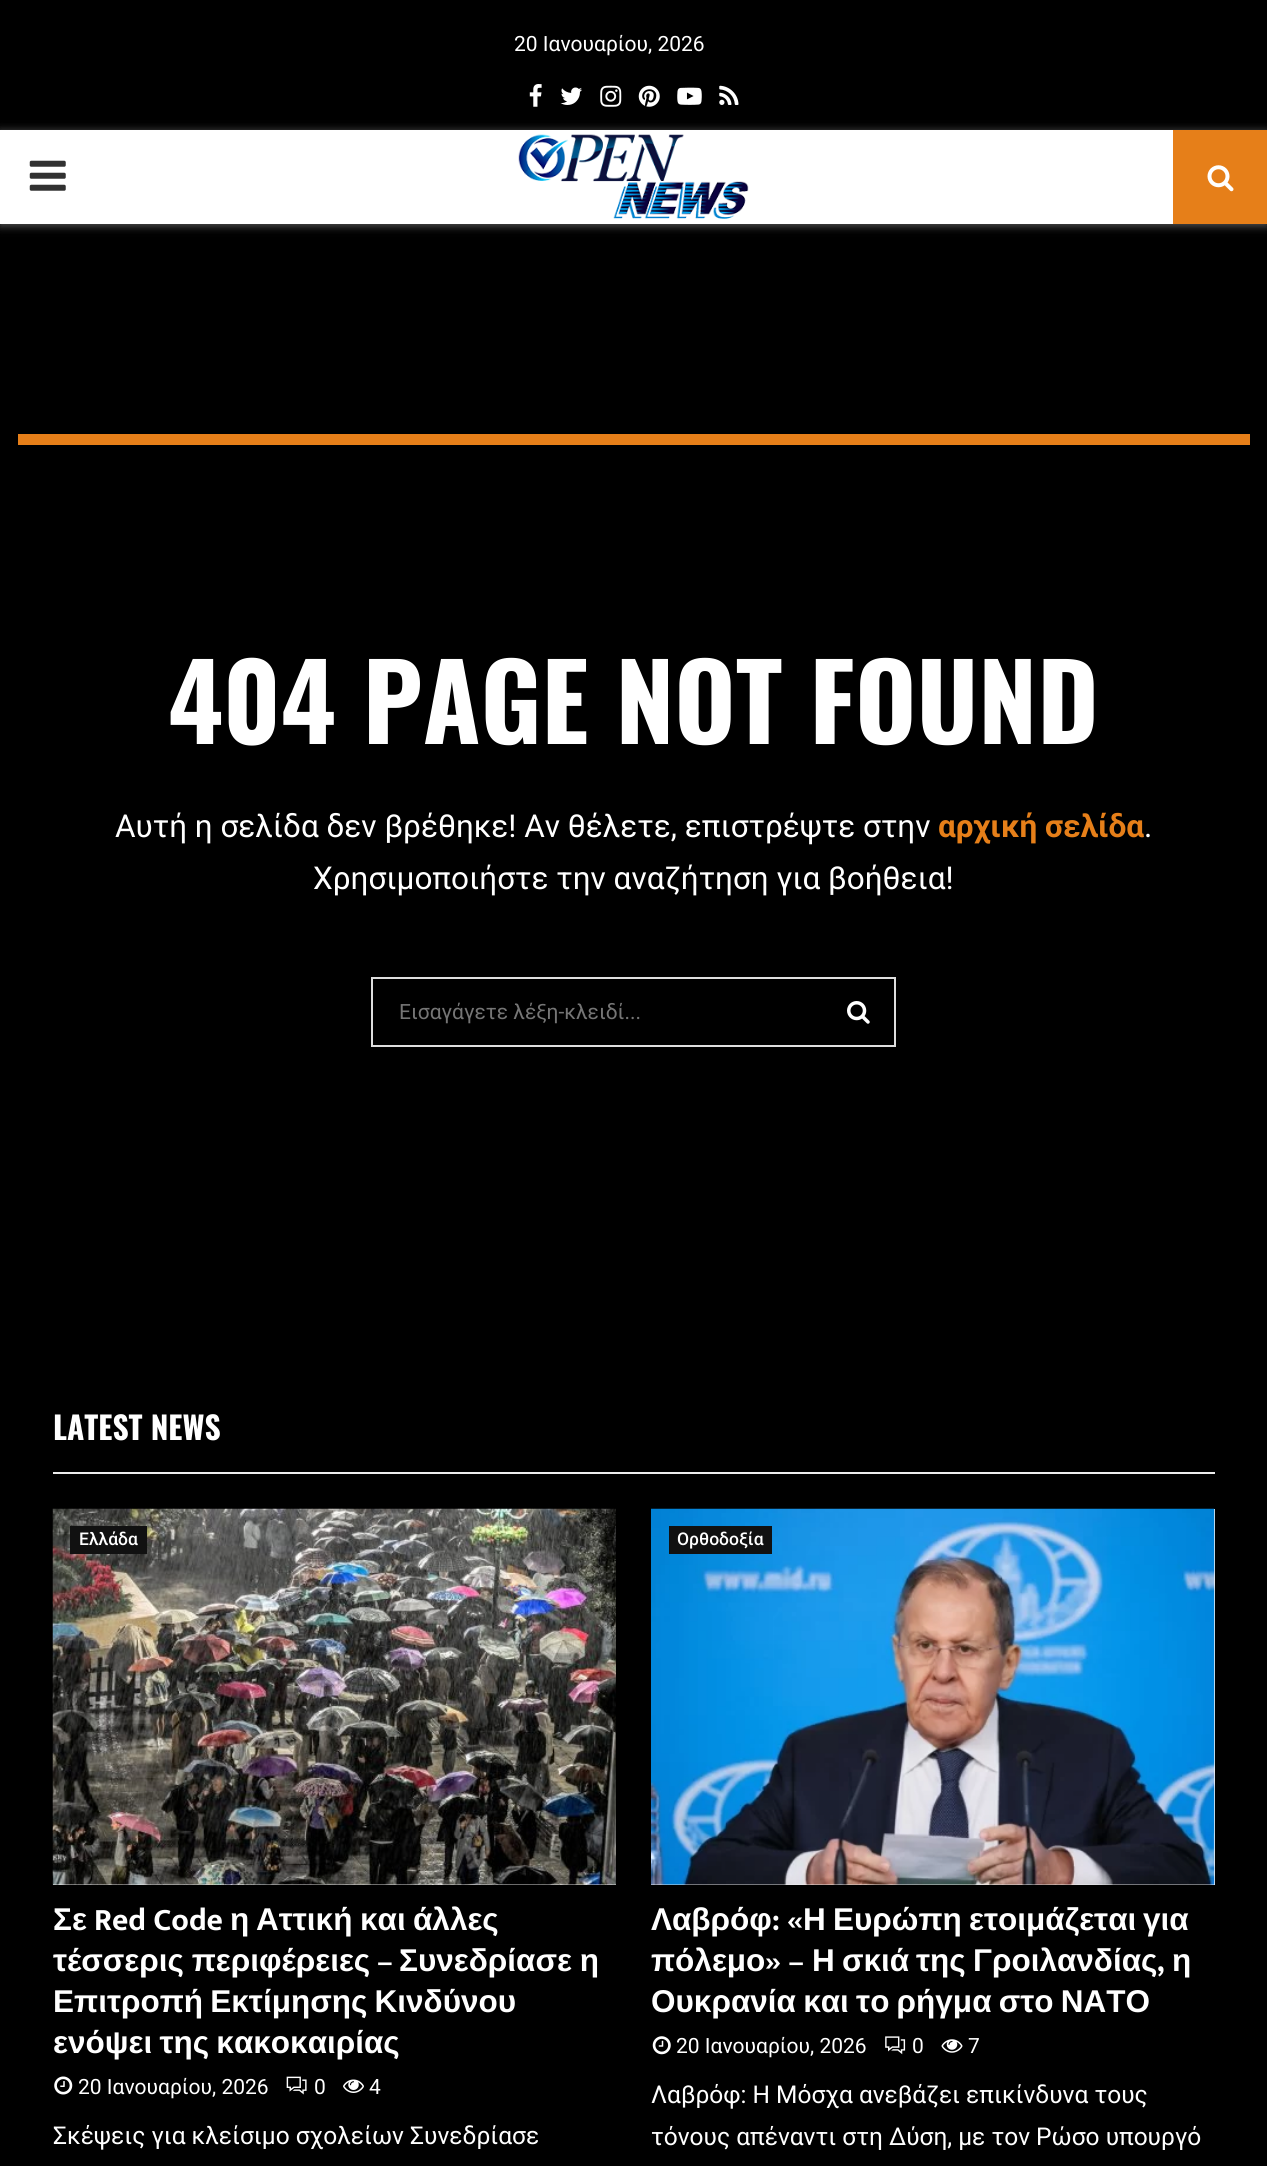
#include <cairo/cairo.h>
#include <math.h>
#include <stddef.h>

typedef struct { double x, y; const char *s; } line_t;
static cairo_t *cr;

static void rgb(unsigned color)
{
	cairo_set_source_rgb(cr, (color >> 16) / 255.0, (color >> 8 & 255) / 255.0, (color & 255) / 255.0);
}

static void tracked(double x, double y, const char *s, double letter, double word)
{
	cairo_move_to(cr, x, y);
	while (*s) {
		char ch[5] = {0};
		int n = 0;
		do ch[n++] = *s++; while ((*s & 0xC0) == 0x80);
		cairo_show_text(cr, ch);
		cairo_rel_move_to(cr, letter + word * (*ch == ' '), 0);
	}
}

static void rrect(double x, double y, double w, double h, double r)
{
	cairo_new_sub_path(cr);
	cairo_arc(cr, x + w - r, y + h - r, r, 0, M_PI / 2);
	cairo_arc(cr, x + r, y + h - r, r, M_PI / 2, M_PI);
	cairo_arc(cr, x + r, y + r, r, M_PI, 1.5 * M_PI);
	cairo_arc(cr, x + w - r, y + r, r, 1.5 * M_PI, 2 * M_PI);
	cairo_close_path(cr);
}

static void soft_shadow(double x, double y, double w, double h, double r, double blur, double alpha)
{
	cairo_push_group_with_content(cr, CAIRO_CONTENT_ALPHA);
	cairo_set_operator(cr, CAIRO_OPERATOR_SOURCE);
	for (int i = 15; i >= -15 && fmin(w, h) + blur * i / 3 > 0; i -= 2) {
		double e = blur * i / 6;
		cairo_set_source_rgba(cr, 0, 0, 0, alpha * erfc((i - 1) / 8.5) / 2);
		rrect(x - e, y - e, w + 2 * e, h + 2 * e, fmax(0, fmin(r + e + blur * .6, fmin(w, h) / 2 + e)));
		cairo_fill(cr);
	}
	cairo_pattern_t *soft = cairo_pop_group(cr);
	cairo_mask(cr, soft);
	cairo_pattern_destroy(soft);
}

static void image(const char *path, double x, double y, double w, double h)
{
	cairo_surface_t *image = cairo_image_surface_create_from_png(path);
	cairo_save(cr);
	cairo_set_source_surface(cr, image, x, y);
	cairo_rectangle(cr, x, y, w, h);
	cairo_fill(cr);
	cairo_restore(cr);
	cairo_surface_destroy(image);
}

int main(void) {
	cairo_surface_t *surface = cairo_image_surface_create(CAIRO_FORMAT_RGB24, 1267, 2166);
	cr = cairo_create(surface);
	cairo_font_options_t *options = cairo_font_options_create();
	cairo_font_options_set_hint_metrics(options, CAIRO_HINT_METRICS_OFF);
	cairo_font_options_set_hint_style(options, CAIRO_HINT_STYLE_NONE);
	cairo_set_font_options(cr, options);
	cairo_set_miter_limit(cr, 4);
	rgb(0x000000);
	cairo_paint(cr);
	image("img/1.png", 529, 84, 13, 23);
	image("img/2.png", 560, 87, 22, 18);
	image("img/3.png", 600, 85, 22, 22);
	image("img/4.png", 638, 85, 22, 22);
	image("img/5.png", 677, 87, 25, 18);
	image("img/6.png", 719, 85, 20, 20);
	rgb(0xbebebe);
	soft_shadow(0, 131, 1267, 95, 0, 4.5, 0.46);
	rgb(0xffffff);
	cairo_rectangle(cr, 0, 130, 1173, 94);
	cairo_fill(cr);
	image("img/7.png", 29, 160, 37, 31);
	image("img/8.png", 518, 134, 231, 85);
	rgb(0xe67f19);
	cairo_rectangle(cr, 1173, 130, 94, 94);
	cairo_fill(cr);
	image("img/9.png", 1207, 165, 27, 27);
	cairo_rectangle(cr, 18, 434, 1232, 11);
	cairo_fill(cr);
	cairo_rectangle(cr, 372, 978, 523, 68);
	rgb(0xdedede);
	cairo_stroke(cr);
	image("img/10.png", 847, 1001, 23, 23);
	rgb(0xececec);
	cairo_rectangle(cr, 53, 1472, 1162, 2);
	cairo_fill(cr);
	rgb(0xf5f5f5);
	cairo_rectangle(cr, 53, 1884, 563, 1);
	cairo_fill(cr);
	image("img/11.png", 52, 1508, 564, 377);
	rgb(0x111111);
	cairo_rectangle(cr, 70, 1526, 77, 28);
	cairo_fill(cr);
	image("img/12.png", 54, 2076, 19, 19);
	image("img/13.png", 286, 2076, 21, 19);
	image("img/14.png", 343, 2079, 21, 14);
	rgb(0xf5f5f5);
	cairo_rectangle(cr, 651, 1509, 564, 376);
	cairo_fill(cr);
	image("img/15.png", 651, 1508, 564, 377);
	rgb(0x111111);
	cairo_rectangle(cr, 669, 1526, 103, 28);
	cairo_fill(cr);
	image("img/16.png", 652, 2036, 19, 19);
	image("img/17.png", 885, 2036, 21, 19);
	image("img/18.png", 941, 2039, 22, 14);
	cairo_select_font_face(cr, "Roboto", CAIRO_FONT_SLANT_NORMAL, CAIRO_FONT_WEIGHT_NORMAL);
	cairo_set_font_size(cr, 21);
	rgb(0xffffff);
	cairo_move_to(cr, 514, 51);
	cairo_show_text(cr, "20 Ιανουαρίου, 2026");
	cairo_select_font_face(cr, "Oswald", CAIRO_FONT_SLANT_NORMAL, CAIRO_FONT_WEIGHT_BOLD);
	cairo_set_font_size(cr, 105);
	cairo_move_to(cr, 168, 744);
	cairo_show_text(cr, "404 PAGE NOT FOUND");
	cairo_select_font_face(cr, "Roboto", CAIRO_FONT_SLANT_NORMAL, CAIRO_FONT_WEIGHT_NORMAL);
	cairo_set_font_size(cr, 31.5);
	cairo_move_to(cr, 115, 837);
	cairo_show_text(cr, "Αυτή η σελίδα δεν βρέθηκε! Αν θέλετε, επιστρέψτε στην");
	cairo_select_font_face(cr, "Roboto", CAIRO_FONT_SLANT_NORMAL, CAIRO_FONT_WEIGHT_BOLD);
	rgb(0xe67f19);
	cairo_move_to(cr, 938, 837);
	cairo_show_text(cr, "αρχική σελίδα");
	cairo_select_font_face(cr, "Roboto", CAIRO_FONT_SLANT_NORMAL, CAIRO_FONT_WEIGHT_NORMAL);
	rgb(0xffffff);
	cairo_move_to(cr, 1144, 837);
	cairo_show_text(cr, ".");
	cairo_move_to(cr, 313, 889);
	cairo_show_text(cr, "Χρησιμοποιήστε την αναζήτηση για βοήθεια!");
	cairo_set_font_size(cr, 21);
	rgb(0x757575);
	cairo_move_to(cr, 399, 1019);
	cairo_show_text(cr, "Εισαγάγετε λέξη-κλειδί...");
	cairo_select_font_face(cr, "Oswald", CAIRO_FONT_SLANT_NORMAL, CAIRO_FONT_WEIGHT_BOLD);
	cairo_set_font_size(cr, 31.5);
	rgb(0xffffff);
	cairo_move_to(cr, 53, 1440);
	cairo_show_text(cr, "LATEST NEWS");
	cairo_select_font_face(cr, "Roboto Medium", CAIRO_FONT_SLANT_NORMAL, CAIRO_FONT_WEIGHT_NORMAL);
	cairo_set_font_size(cr, 17.5);
	cairo_move_to(cr, 79, 1545);
	cairo_show_text(cr, "Ελλάδα");
	cairo_select_font_face(cr, "Liberation Sans", CAIRO_FONT_SLANT_NORMAL, CAIRO_FONT_WEIGHT_BOLD);
	cairo_set_font_size(cr, 31.5);
	cairo_move_to(cr, 53, 1930);
	cairo_show_text(cr, "Σε");
	cairo_select_font_face(cr, "Mukta Vaani", CAIRO_FONT_SLANT_NORMAL, CAIRO_FONT_WEIGHT_BOLD);
	cairo_move_to(cr, 94, 1930);
	cairo_show_text(cr, "Red Code");
	cairo_select_font_face(cr, "Liberation Sans", CAIRO_FONT_SLANT_NORMAL, CAIRO_FONT_WEIGHT_BOLD);
	{
		static const line_t items[] = {
			{230, 1930, "η"},
			{256, 1930, "Αττική"},
			{360, 1930, "και"},
			{413, 1930, "άλλες"},
		};
		for (size_t i = 0; i < sizeof items / sizeof *items; i++) {
			cairo_move_to(cr, items[i].x, items[i].y);
			cairo_show_text(cr, items[i].s);
		}
	}
	cairo_save(cr);
	cairo_rectangle(cr, 53, 1509, 1162, 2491);
	cairo_clip(cr);
	tracked(53, 1971, "τέσσερις περιφέρειες", 0, -1);
	cairo_restore(cr);
	cairo_select_font_face(cr, "Mukta Vaani", CAIRO_FONT_SLANT_NORMAL, CAIRO_FONT_WEIGHT_BOLD);
	cairo_move_to(cr, 377, 1971);
	cairo_show_text(cr, "–");
	cairo_select_font_face(cr, "Liberation Sans", CAIRO_FONT_SLANT_NORMAL, CAIRO_FONT_WEIGHT_BOLD);
	tracked(399, 1971, "Συνεδρίασε η", 0, -1);
	tracked(53, 2012, "Επιτροπή Εκτίμησης Κινδύνου", 0, -1.5);
	tracked(53, 2053, "ενόψει της κακοκαιρίας", 0, -1.5);
	cairo_select_font_face(cr, "Roboto", CAIRO_FONT_SLANT_NORMAL, CAIRO_FONT_WEIGHT_NORMAL);
	cairo_set_font_size(cr, 21);
	{
		static const line_t items[] = {
			{78, 2094, "20 Ιανουαρίου, 2026"},
			{314, 2094, "0"},
			{369, 2094, "4"},
		};
		for (size_t i = 0; i < sizeof items / sizeof *items; i++) {
			cairo_move_to(cr, items[i].x, items[i].y);
			cairo_show_text(cr, items[i].s);
		}
	}
	cairo_set_font_size(cr, 24.5);
	cairo_move_to(cr, 53, 2144);
	cairo_show_text(cr, "Σκέψεις για κλείσιμο σχολείων Συνεδρίασε");
	cairo_select_font_face(cr, "Roboto Medium", CAIRO_FONT_SLANT_NORMAL, CAIRO_FONT_WEIGHT_NORMAL);
	cairo_set_font_size(cr, 17.5);
	cairo_move_to(cr, 677, 1545);
	cairo_show_text(cr, "Ορθοδοξία");
	cairo_select_font_face(cr, "Liberation Sans", CAIRO_FONT_SLANT_NORMAL, CAIRO_FONT_WEIGHT_BOLD);
	cairo_set_font_size(cr, 31.5);
	cairo_move_to(cr, 651, 1930);
	cairo_show_text(cr, "Λαβρόφ");
	cairo_select_font_face(cr, "Mukta Vaani", CAIRO_FONT_SLANT_NORMAL, CAIRO_FONT_WEIGHT_BOLD);
	cairo_move_to(cr, 772, 1930);
	cairo_show_text(cr, ": «");
	cairo_select_font_face(cr, "Liberation Sans", CAIRO_FONT_SLANT_NORMAL, CAIRO_FONT_WEIGHT_BOLD);
	{
		static const line_t items[] = {
			{803, 1930, "Η"},
			{833, 1930, "Ευρώπη"},
			{969, 1930, "ετοιμάζεται"},
			{1143, 1930, "για"},
			{651, 1971, "πόλεμο"},
		};
		for (size_t i = 0; i < sizeof items / sizeof *items; i++) {
			cairo_move_to(cr, items[i].x, items[i].y);
			cairo_show_text(cr, items[i].s);
		}
	}
	cairo_select_font_face(cr, "Mukta Vaani", CAIRO_FONT_SLANT_NORMAL, CAIRO_FONT_WEIGHT_BOLD);
	cairo_move_to(cr, 765, 1971);
	cairo_show_text(cr, "» –");
	cairo_select_font_face(cr, "Liberation Sans", CAIRO_FONT_SLANT_NORMAL, CAIRO_FONT_WEIGHT_BOLD);
	{
		static const line_t items[] = {
			{812, 1971, "Η"},
			{842, 1971, "σκιά"},
			{916, 1971, "της"},
			{973, 1971, "Γροιλανδίας"},
			{1172, 1971, "η"},
		};
		for (size_t i = 0; i < sizeof items / sizeof *items; i++) {
			cairo_move_to(cr, items[i].x, items[i].y);
			cairo_show_text(cr, items[i].s);
		}
	}
	cairo_select_font_face(cr, "Mukta Vaani", CAIRO_FONT_SLANT_NORMAL, CAIRO_FONT_WEIGHT_BOLD);
	cairo_move_to(cr, 1157, 1971);
	cairo_show_text(cr, ",");
	cairo_select_font_face(cr, "Liberation Sans", CAIRO_FONT_SLANT_NORMAL, CAIRO_FONT_WEIGHT_BOLD);
	tracked(651, 2012, "Ουκρανία και το ρήγμα στο ΝΑΤΟ", 0, -1.5);
	cairo_select_font_face(cr, "Roboto", CAIRO_FONT_SLANT_NORMAL, CAIRO_FONT_WEIGHT_NORMAL);
	cairo_set_font_size(cr, 21);
	{
		static const line_t items[] = {
			{676, 2053, "20 Ιανουαρίου, 2026"},
			{912, 2053, "0"},
			{968, 2053, "7"},
		};
		for (size_t i = 0; i < sizeof items / sizeof *items; i++) {
			cairo_move_to(cr, items[i].x, items[i].y);
			cairo_show_text(cr, items[i].s);
		}
	}
	cairo_set_font_size(cr, 24.5);
	cairo_move_to(cr, 651, 2103);
	cairo_show_text(cr, "Λαβρόφ: Η Μόσχα ανεβάζει επικίνδυνα τους");
	cairo_move_to(cr, 651, 2145);
	cairo_show_text(cr, "τόνους απέναντι στη Δύση, με τον Ρώσο υπουργό");
	cairo_surface_write_to_png(surface, "page.png");
	cairo_font_options_destroy(options);
	cairo_destroy(cr);
	cairo_surface_destroy(surface);
	return 0;
}
